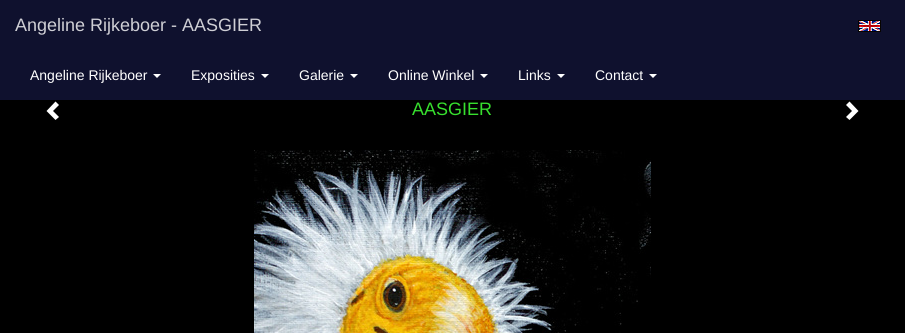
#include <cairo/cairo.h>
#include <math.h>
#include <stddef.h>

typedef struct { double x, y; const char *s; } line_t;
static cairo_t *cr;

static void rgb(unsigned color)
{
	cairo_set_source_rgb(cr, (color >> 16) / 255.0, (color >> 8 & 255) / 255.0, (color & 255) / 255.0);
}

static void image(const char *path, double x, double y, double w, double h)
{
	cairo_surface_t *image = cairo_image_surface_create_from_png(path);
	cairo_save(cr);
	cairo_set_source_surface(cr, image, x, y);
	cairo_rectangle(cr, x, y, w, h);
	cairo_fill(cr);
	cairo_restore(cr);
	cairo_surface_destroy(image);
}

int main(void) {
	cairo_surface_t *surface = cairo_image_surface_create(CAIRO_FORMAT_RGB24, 905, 333);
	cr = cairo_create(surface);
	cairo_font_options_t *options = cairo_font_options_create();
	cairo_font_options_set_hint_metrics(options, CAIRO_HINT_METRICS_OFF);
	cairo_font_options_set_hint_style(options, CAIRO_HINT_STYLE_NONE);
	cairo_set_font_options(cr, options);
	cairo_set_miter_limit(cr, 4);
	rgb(0x000000);
	cairo_paint(cr);
	rgb(0x0f112e);
	cairo_rectangle(cr, 0, 0, 905, 100);
	cairo_fill(cr);
	image("img/1.png", 858, 20, 23, 12);
	rgb(0xffffff);
	cairo_new_path(cr);
	cairo_move_to(cr, 153, 74);
	cairo_line_to(cr, 161, 74);
	cairo_line_to(cr, 157, 78);
	cairo_close_path(cr);
	cairo_fill(cr);
	cairo_new_path(cr);
	cairo_move_to(cr, 261, 74);
	cairo_line_to(cr, 269, 74);
	cairo_line_to(cr, 265, 78);
	cairo_close_path(cr);
	cairo_fill(cr);
	cairo_new_path(cr);
	cairo_move_to(cr, 350, 74);
	cairo_line_to(cr, 358, 74);
	cairo_line_to(cr, 354, 78);
	cairo_close_path(cr);
	cairo_fill(cr);
	cairo_new_path(cr);
	cairo_move_to(cr, 480, 74);
	cairo_line_to(cr, 488, 74);
	cairo_line_to(cr, 484, 78);
	cairo_close_path(cr);
	cairo_fill(cr);
	cairo_new_path(cr);
	cairo_move_to(cr, 557, 74);
	cairo_line_to(cr, 565, 74);
	cairo_line_to(cr, 561, 78);
	cairo_close_path(cr);
	cairo_fill(cr);
	cairo_new_path(cr);
	cairo_move_to(cr, 649, 74);
	cairo_line_to(cr, 657, 74);
	cairo_line_to(cr, 653, 78);
	cairo_close_path(cr);
	cairo_fill(cr);
	cairo_new_path(cr);
	cairo_move_to(cr, 59, 105);
	cairo_line_to(cr, 53, 111);
	cairo_line_to(cr, 59, 117);
	cairo_line_to(cr, 55.5, 120);
	cairo_line_to(cr, 46.5, 111);
	cairo_line_to(cr, 55.5, 101.5);
	cairo_close_path(cr);
	cairo_fill(cr);
	cairo_new_path(cr);
	cairo_move_to(cr, 858.5, 111);
	cairo_line_to(cr, 849.5, 120);
	cairo_line_to(cr, 846, 117);
	cairo_line_to(cr, 852, 111);
	cairo_line_to(cr, 846, 105);
	cairo_line_to(cr, 849.5, 101.5);
	cairo_close_path(cr);
	cairo_fill(cr);
	image("img/2.png", 254, 150, 397, 183);
	cairo_select_font_face(cr, "Liberation Sans", CAIRO_FONT_SLANT_NORMAL, CAIRO_FONT_WEIGHT_NORMAL);
	cairo_set_font_size(cr, 18);
	rgb(0xcfcfd5);
	cairo_move_to(cr, 15, 31);
	cairo_show_text(cr, "Angeline Rijkeboer - AASGIER");
	cairo_set_font_size(cr, 14);
	rgb(0xffffff);
	{
		static const line_t items[] = {
			{30, 80, "Angeline Rijkeboer"},
			{191, 80, "Exposities"},
			{299, 80, "Galerie"},
			{388, 80, "Online Winkel"},
			{518, 80, "Links"},
			{595, 80, "Contact"},
		};
		for (size_t i = 0; i < sizeof items / sizeof *items; i++) {
			cairo_move_to(cr, items[i].x, items[i].y);
			cairo_show_text(cr, items[i].s);
		}
	}
	cairo_set_font_size(cr, 18);
	rgb(0x37e02e);
	cairo_move_to(cr, 412, 115);
	cairo_show_text(cr, "AASGIER");
	cairo_surface_write_to_png(surface, "page.png");
	cairo_font_options_destroy(options);
	cairo_destroy(cr);
	cairo_surface_destroy(surface);
	return 0;
}
